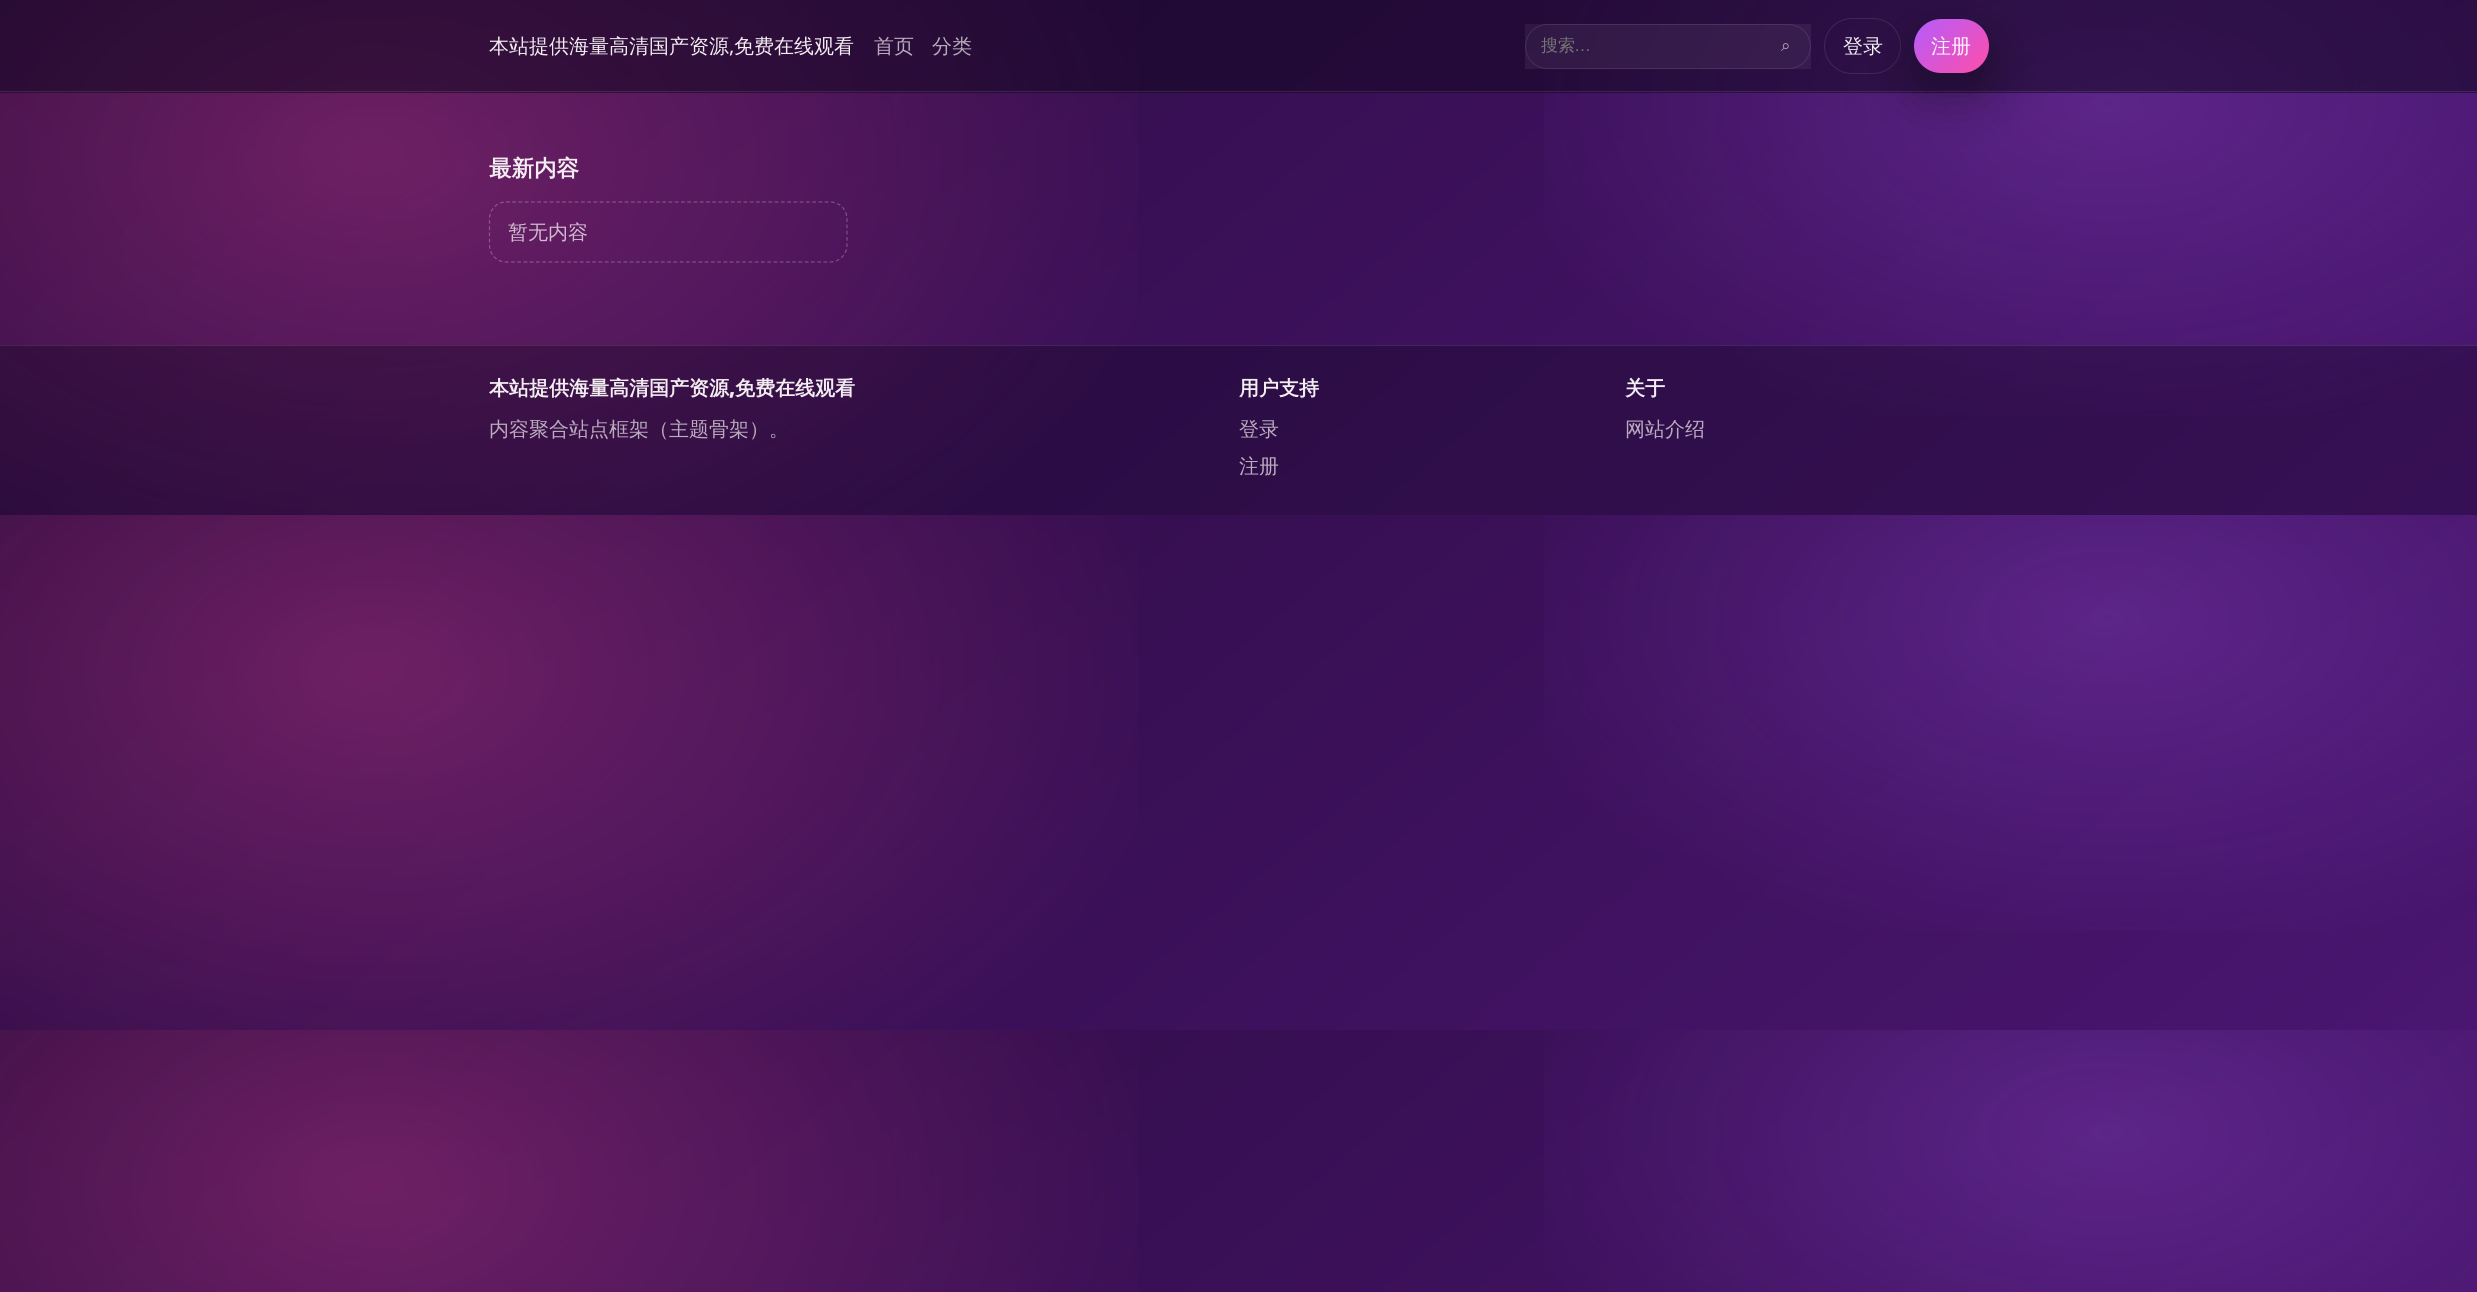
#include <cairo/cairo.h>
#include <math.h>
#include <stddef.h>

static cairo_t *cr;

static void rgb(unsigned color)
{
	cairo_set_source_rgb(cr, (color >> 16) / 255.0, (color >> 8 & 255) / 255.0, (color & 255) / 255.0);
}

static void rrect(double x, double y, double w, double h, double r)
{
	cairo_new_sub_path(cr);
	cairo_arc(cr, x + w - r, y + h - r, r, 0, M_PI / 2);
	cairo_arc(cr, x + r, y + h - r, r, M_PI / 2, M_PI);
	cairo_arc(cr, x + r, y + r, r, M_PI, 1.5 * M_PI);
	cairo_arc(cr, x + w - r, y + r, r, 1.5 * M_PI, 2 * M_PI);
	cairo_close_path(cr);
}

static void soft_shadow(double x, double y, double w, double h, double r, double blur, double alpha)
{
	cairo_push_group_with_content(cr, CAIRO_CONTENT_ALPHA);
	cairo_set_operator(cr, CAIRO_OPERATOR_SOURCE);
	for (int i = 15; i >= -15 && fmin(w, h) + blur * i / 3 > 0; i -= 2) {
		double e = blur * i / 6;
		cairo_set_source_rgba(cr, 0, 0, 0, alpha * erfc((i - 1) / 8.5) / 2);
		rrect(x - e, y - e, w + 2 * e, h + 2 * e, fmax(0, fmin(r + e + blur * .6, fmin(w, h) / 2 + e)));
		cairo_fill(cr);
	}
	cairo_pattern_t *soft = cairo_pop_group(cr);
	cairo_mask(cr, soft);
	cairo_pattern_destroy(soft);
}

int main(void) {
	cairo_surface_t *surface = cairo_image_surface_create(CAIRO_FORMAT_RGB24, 2477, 1292);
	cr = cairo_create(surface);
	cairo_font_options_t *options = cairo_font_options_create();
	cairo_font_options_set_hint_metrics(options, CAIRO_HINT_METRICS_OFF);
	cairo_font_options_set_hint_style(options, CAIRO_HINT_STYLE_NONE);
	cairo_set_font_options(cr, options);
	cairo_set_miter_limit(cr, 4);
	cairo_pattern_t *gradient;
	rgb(0xffffff);
	cairo_paint(cr);
	gradient = cairo_pattern_create_linear(600, -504, 1877, 1019);
	cairo_pattern_add_color_stop_rgba(gradient, 0, 0.165, 0.039, 0.243, 1);
	cairo_pattern_add_color_stop_rgba(gradient, 1, 0.29, 0.086, 0.443, 1);
	cairo_set_source(cr, gradient);
	cairo_pattern_destroy(gradient);
	cairo_rectangle(cr, 0, 0, 2477, 515);
	cairo_fill(cr);
	gradient = cairo_pattern_create_linear(600, 11, 1877, 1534);
	cairo_pattern_add_color_stop_rgba(gradient, 0, 0.165, 0.039, 0.243, 1);
	cairo_pattern_add_color_stop_rgba(gradient, 1, 0.29, 0.086, 0.443, 1);
	cairo_set_source(cr, gradient);
	cairo_pattern_destroy(gradient);
	cairo_rectangle(cr, 0, 515, 2477, 515);
	cairo_fill(cr);
	gradient = cairo_pattern_create_linear(600, 526, 1877, 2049);
	cairo_pattern_add_color_stop_rgba(gradient, 0, 0.165, 0.039, 0.243, 1);
	cairo_pattern_add_color_stop_rgba(gradient, 1, 0.29, 0.086, 0.443, 1);
	cairo_set_source(cr, gradient);
	cairo_pattern_destroy(gradient);
	cairo_rectangle(cr, 0, 1030, 2477, 262);
	cairo_fill(cr);
	gradient = cairo_pattern_create_radial(0, 0, 0, 0, 0, 1);
	cairo_pattern_set_matrix(gradient, &(cairo_matrix_t){1.0 / 1125, 0, 0, 1.0 / 625, -1.0 * 2106 / 1125, -1.0 * 103 / 625});
	cairo_pattern_add_color_stop_rgba(gradient, 0, 0.702, 0.361, 1, 0.24);
	cairo_pattern_add_color_stop_rgba(gradient, 0.55, 0.702, 0.361, 1, 0);
	cairo_set_source(cr, gradient);
	cairo_pattern_destroy(gradient);
	cairo_rectangle(cr, 1544, 0, 933, 416);
	cairo_fill(cr);
	gradient = cairo_pattern_create_radial(0, 0, 0, 0, 0, 1);
	cairo_pattern_set_matrix(gradient, &(cairo_matrix_t){1.0 / 1125, 0, 0, 1.0 / 625, -1.0 * 2106 / 1125, -1.0 * 618 / 625});
	cairo_pattern_add_color_stop_rgba(gradient, 0, 0.702, 0.361, 1, 0.24);
	cairo_pattern_add_color_stop_rgba(gradient, 0.55, 0.702, 0.361, 1, 0);
	cairo_set_source(cr, gradient);
	cairo_pattern_destroy(gradient);
	cairo_rectangle(cr, 1544, 515, 933, 416);
	cairo_fill(cr);
	gradient = cairo_pattern_create_radial(0, 0, 0, 0, 0, 1);
	cairo_pattern_set_matrix(gradient, &(cairo_matrix_t){1.0 / 1125, 0, 0, 1.0 / 625, -1.0 * 2106 / 1125, -1.0 * 1133 / 625});
	cairo_pattern_add_color_stop_rgba(gradient, 0, 0.702, 0.361, 1, 0.24);
	cairo_pattern_add_color_stop_rgba(gradient, 0.55, 0.702, 0.361, 1, 0);
	cairo_set_source(cr, gradient);
	cairo_pattern_destroy(gradient);
	cairo_rectangle(cr, 1544, 1030, 933, 262);
	cairo_fill(cr);
	gradient = cairo_pattern_create_radial(0, 0, 0, 0, 0, 1);
	cairo_pattern_set_matrix(gradient, &(cairo_matrix_t){1.0 / 1375, 0, 0, 1.0 / 875, -1.0 * 372 / 1375, -1.0 * 155 / 875});
	cairo_pattern_add_color_stop_rgba(gradient, 0, 1, 0.306, 0.659, 0.3);
	cairo_pattern_add_color_stop_rgba(gradient, 0.6, 1, 0.306, 0.659, 0);
	cairo_set_source(cr, gradient);
	cairo_pattern_destroy(gradient);
	cairo_rectangle(cr, 0, 0, 1138, 515);
	cairo_fill(cr);
	gradient = cairo_pattern_create_radial(0, 0, 0, 0, 0, 1);
	cairo_pattern_set_matrix(gradient, &(cairo_matrix_t){1.0 / 1375, 0, 0, 1.0 / 875, -1.0 * 372 / 1375, -1.0 * 670 / 875});
	cairo_pattern_add_color_stop_rgba(gradient, 0, 1, 0.306, 0.659, 0.3);
	cairo_pattern_add_color_stop_rgba(gradient, 0.6, 1, 0.306, 0.659, 0);
	cairo_set_source(cr, gradient);
	cairo_pattern_destroy(gradient);
	cairo_rectangle(cr, 0, 515, 1138, 515);
	cairo_fill(cr);
	gradient = cairo_pattern_create_radial(0, 0, 0, 0, 0, 1);
	cairo_pattern_set_matrix(gradient, &(cairo_matrix_t){1.0 / 1375, 0, 0, 1.0 / 875, -1.0 * 372 / 1375, -1.0 * 1185 / 875});
	cairo_pattern_add_color_stop_rgba(gradient, 0, 1, 0.306, 0.659, 0.3);
	cairo_pattern_add_color_stop_rgba(gradient, 0.6, 1, 0.306, 0.659, 0);
	cairo_set_source(cr, gradient);
	cairo_pattern_destroy(gradient);
	cairo_rectangle(cr, 0, 1030, 1138, 262);
	cairo_fill(cr);
	cairo_set_source_rgba(cr, 0.071, 0.024, 0.125, 0.55);
	cairo_rectangle(cr, 0, 0, 2477, 93);
	cairo_fill(cr);
	cairo_set_source_rgba(cr, 1, 1, 1, 0.1);
	cairo_rectangle(cr, 0, 91, 2477, 1);
	cairo_fill(cr);
	cairo_set_source_rgba(cr, 1, 1, 1, 0.06);
	cairo_rectangle(cr, 1525, 24, 286, 45);
	cairo_fill(cr);
	rrect(1525.5, 24.5, 285, 44, 22);
	cairo_set_source_rgba(cr, 1, 1, 1, 0.1);
	cairo_set_line_width(cr, 1);
	cairo_stroke(cr);
	rrect(1824.5, 18.5, 76, 55, 27.5);
	cairo_stroke(cr);
	rgb(0x000000);
	soft_shadow(1914, 39, 75, 54, 27, 25, 0.35);
	gradient = cairo_pattern_create_linear(1919, 13, 1983, 78);
	cairo_pattern_add_color_stop_rgba(gradient, 0, 0.702, 0.361, 1, 1);
	cairo_pattern_add_color_stop_rgba(gradient, 1, 1, 0.306, 0.659, 1);
	cairo_set_source(cr, gradient);
	cairo_pattern_destroy(gradient);
	rrect(1914, 19, 75, 54, 27);
	cairo_fill(cr);
	cairo_new_path(cr);
	cairo_move_to(cr, 506, 202);
	cairo_line_to(cr, 830, 202);
	cairo_curve_to(cr, 839.5, 202, 847, 209.5, 847, 219);
	cairo_line_to(cr, 847, 245);
	cairo_curve_to(cr, 847, 254.5, 839.5, 262, 830, 262);
	cairo_line_to(cr, 506, 262);
	cairo_curve_to(cr, 497, 262, 489.5, 254.5, 489.5, 245);
	cairo_line_to(cr, 489.5, 219);
	cairo_curve_to(cr, 489.5, 209.5, 497, 202, 506, 202);
	cairo_close_path(cr);
	cairo_set_source_rgba(cr, 1, 1, 1, 0.25);
	cairo_set_line_width(cr, 1.2);
	cairo_set_dash(cr, (double[]){3.75, 2.5}, 2, 0);
	cairo_stroke(cr);
	cairo_set_source_rgba(cr, 0.071, 0.024, 0.125, 0.35);
	cairo_rectangle(cr, 0, 345, 2477, 170);
	cairo_fill(cr);
	cairo_set_source_rgba(cr, 1, 1, 1, 0.1);
	cairo_rectangle(cr, 0, 345, 2477, 1);
	cairo_fill(cr);
	cairo_select_font_face(cr, "WenQuanYi Zen Hei Medium", CAIRO_FONT_SLANT_NORMAL, CAIRO_FONT_WEIGHT_NORMAL);
	cairo_set_font_size(cr, 20);
	rgb(0xf3edf2);
	cairo_move_to(cr, 489, 53);
	cairo_show_text(cr, "本站提供海量高清国产资源");
	cairo_select_font_face(cr, "Noto Sans", CAIRO_FONT_SLANT_NORMAL, CAIRO_FONT_WEIGHT_NORMAL);
	cairo_move_to(cr, 729, 53);
	cairo_show_text(cr, ",");
	cairo_select_font_face(cr, "WenQuanYi Zen Hei Medium", CAIRO_FONT_SLANT_NORMAL, CAIRO_FONT_WEIGHT_NORMAL);
	cairo_move_to(cr, 734, 53);
	cairo_show_text(cr, "免费在线观看");
	rgb(0xbaabbe);
	cairo_move_to(cr, 874, 53);
	cairo_show_text(cr, "首页");
	rgb(0xb4aab9);
	cairo_move_to(cr, 932, 53);
	cairo_show_text(cr, "分类");
	cairo_set_font_size(cr, 17);
	rgb(0x757575);
	cairo_move_to(cr, 1541, 51);
	cairo_show_text(cr, "搜索");
	cairo_select_font_face(cr, "Liberation Sans", CAIRO_FONT_SLANT_NORMAL, CAIRO_FONT_WEIGHT_NORMAL);
	cairo_move_to(cr, 1574, 51);
	cairo_show_text(cr, "…");
	cairo_select_font_face(cr, "FreeSerif", CAIRO_FONT_SLANT_NORMAL, CAIRO_FONT_WEIGHT_NORMAL);
	rgb(0xbaabbe);
	cairo_move_to(cr, 1781, 51);
	cairo_show_text(cr, "⌕");
	cairo_select_font_face(cr, "WenQuanYi Zen Hei Medium", CAIRO_FONT_SLANT_NORMAL, CAIRO_FONT_WEIGHT_NORMAL);
	cairo_set_font_size(cr, 20);
	rgb(0xf3edf2);
	cairo_move_to(cr, 1843, 53);
	cairo_show_text(cr, "登录");
	rgb(0xfcf1fb);
	cairo_move_to(cr, 1931, 53);
	cairo_show_text(cr, "注册");
	cairo_select_font_face(cr, "WenQuanYi Zen Hei", CAIRO_FONT_SLANT_NORMAL, CAIRO_FONT_WEIGHT_BOLD);
	cairo_set_font_size(cr, 22.5);
	rgb(0xf3edf2);
	cairo_move_to(cr, 489, 176);
	cairo_show_text(cr, "最新内容");
	cairo_select_font_face(cr, "WenQuanYi Zen Hei Medium", CAIRO_FONT_SLANT_NORMAL, CAIRO_FONT_WEIGHT_NORMAL);
	cairo_set_font_size(cr, 20);
	rgb(0xcfbbcf);
	cairo_move_to(cr, 508, 239);
	cairo_show_text(cr, "暂无内容");
	cairo_select_font_face(cr, "WenQuanYi Zen Hei", CAIRO_FONT_SLANT_NORMAL, CAIRO_FONT_WEIGHT_BOLD);
	rgb(0xf3edf2);
	cairo_move_to(cr, 489, 395);
	cairo_show_text(cr, "本站提供海量高清国产资源 免费在线观看");
	cairo_select_font_face(cr, "Noto Sans Black", CAIRO_FONT_SLANT_NORMAL, CAIRO_FONT_WEIGHT_NORMAL);
	cairo_move_to(cr, 729, 395);
	cairo_show_text(cr, ",");
	cairo_select_font_face(cr, "WenQuanYi Zen Hei Medium", CAIRO_FONT_SLANT_NORMAL, CAIRO_FONT_WEIGHT_NORMAL);
	rgb(0xbaabbe);
	cairo_move_to(cr, 489, 436);
	cairo_show_text(cr, "内容聚合站点框架（主题骨架）。");
	cairo_select_font_face(cr, "WenQuanYi Zen Hei", CAIRO_FONT_SLANT_NORMAL, CAIRO_FONT_WEIGHT_BOLD);
	rgb(0xf3edf2);
	cairo_move_to(cr, 1239, 395);
	cairo_show_text(cr, "用户支持");
	cairo_select_font_face(cr, "WenQuanYi Zen Hei Medium", CAIRO_FONT_SLANT_NORMAL, CAIRO_FONT_WEIGHT_NORMAL);
	rgb(0xbaabbe);
	cairo_move_to(cr, 1239, 436);
	cairo_show_text(cr, "登录");
	cairo_move_to(cr, 1239, 473);
	cairo_show_text(cr, "注册");
	cairo_select_font_face(cr, "WenQuanYi Zen Hei", CAIRO_FONT_SLANT_NORMAL, CAIRO_FONT_WEIGHT_BOLD);
	rgb(0xf3edf2);
	cairo_move_to(cr, 1625, 395);
	cairo_show_text(cr, "关于");
	cairo_select_font_face(cr, "WenQuanYi Zen Hei Medium", CAIRO_FONT_SLANT_NORMAL, CAIRO_FONT_WEIGHT_NORMAL);
	rgb(0xbaabbe);
	cairo_move_to(cr, 1625, 436);
	cairo_show_text(cr, "网站介绍");
	cairo_surface_write_to_png(surface, "page.png");
	cairo_font_options_destroy(options);
	cairo_destroy(cr);
	cairo_surface_destroy(surface);
	return 0;
}
